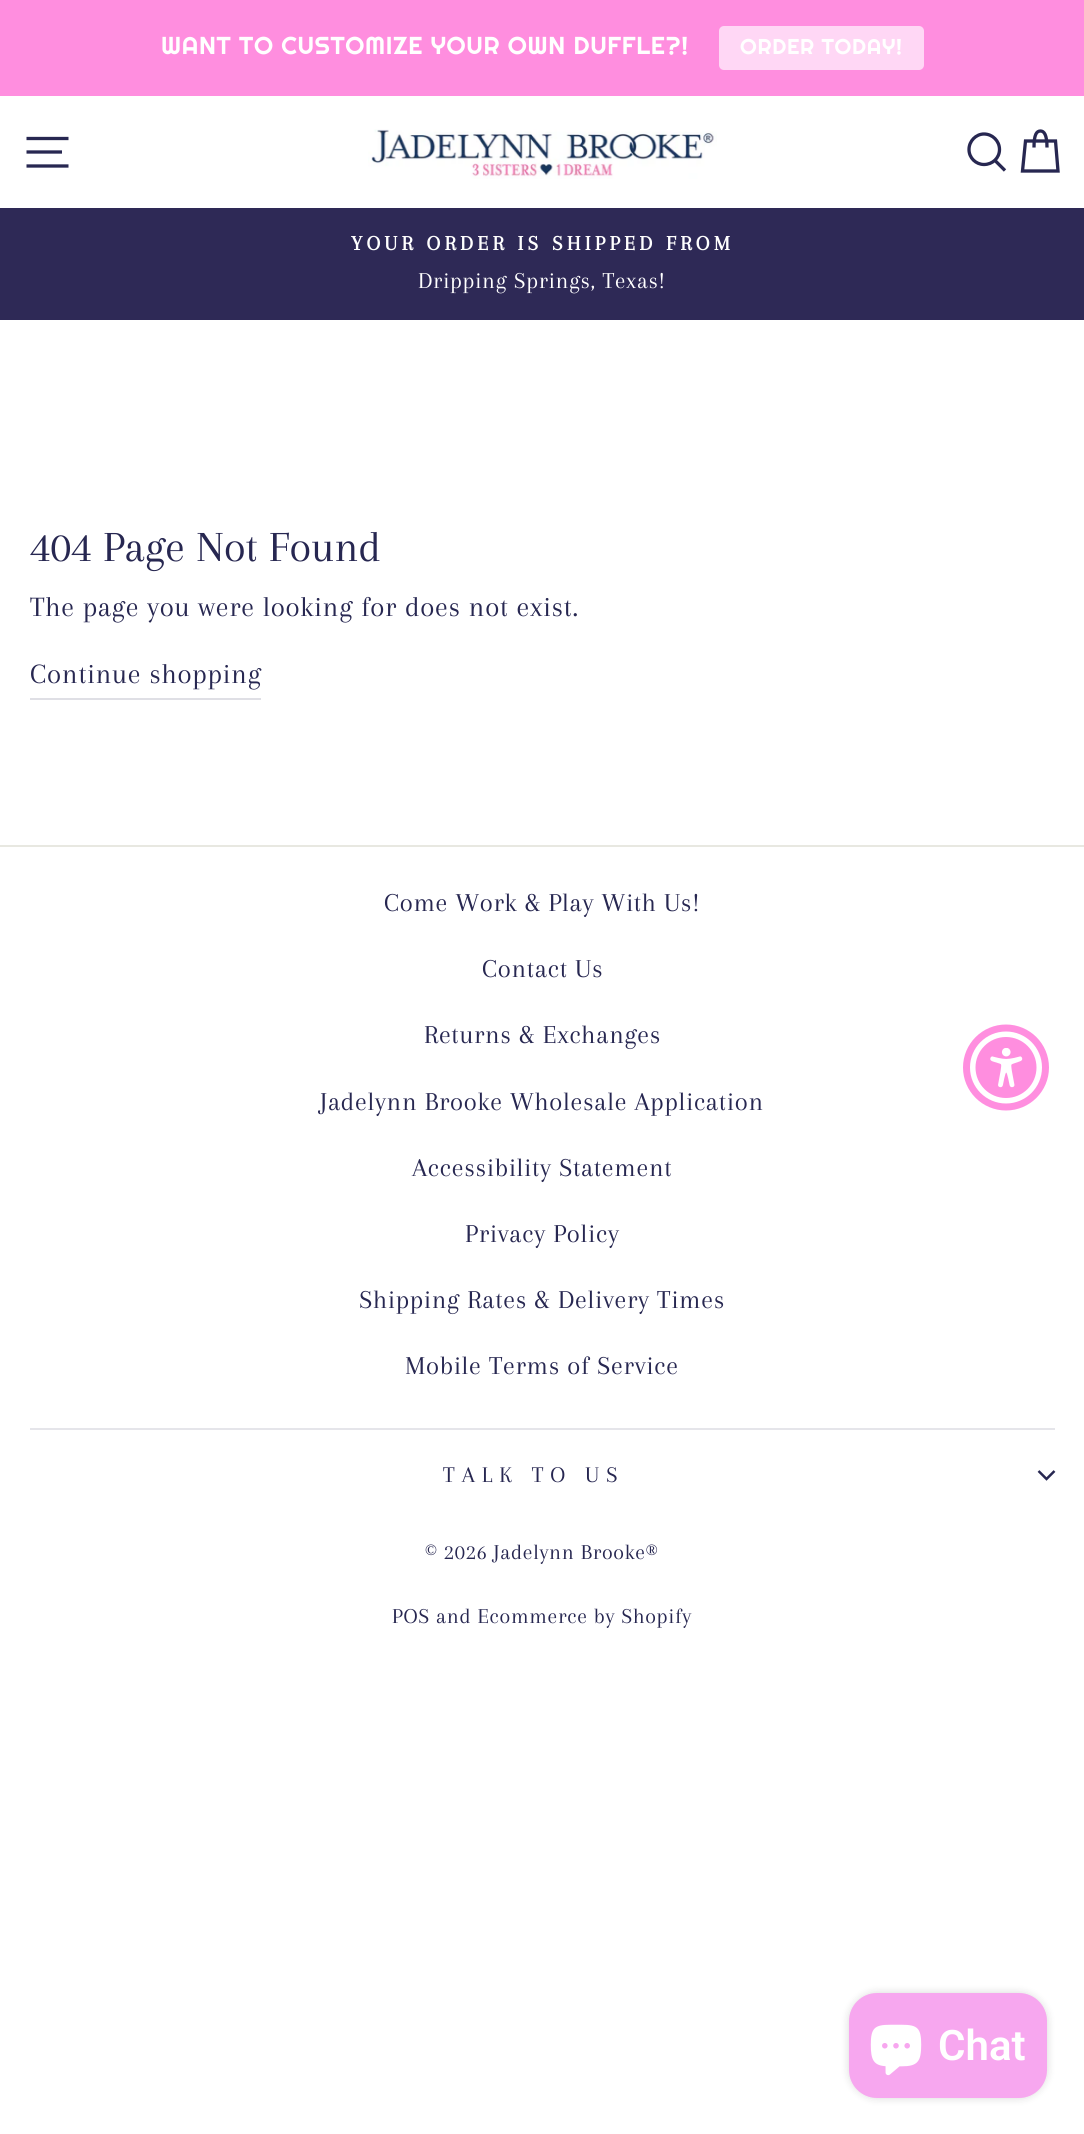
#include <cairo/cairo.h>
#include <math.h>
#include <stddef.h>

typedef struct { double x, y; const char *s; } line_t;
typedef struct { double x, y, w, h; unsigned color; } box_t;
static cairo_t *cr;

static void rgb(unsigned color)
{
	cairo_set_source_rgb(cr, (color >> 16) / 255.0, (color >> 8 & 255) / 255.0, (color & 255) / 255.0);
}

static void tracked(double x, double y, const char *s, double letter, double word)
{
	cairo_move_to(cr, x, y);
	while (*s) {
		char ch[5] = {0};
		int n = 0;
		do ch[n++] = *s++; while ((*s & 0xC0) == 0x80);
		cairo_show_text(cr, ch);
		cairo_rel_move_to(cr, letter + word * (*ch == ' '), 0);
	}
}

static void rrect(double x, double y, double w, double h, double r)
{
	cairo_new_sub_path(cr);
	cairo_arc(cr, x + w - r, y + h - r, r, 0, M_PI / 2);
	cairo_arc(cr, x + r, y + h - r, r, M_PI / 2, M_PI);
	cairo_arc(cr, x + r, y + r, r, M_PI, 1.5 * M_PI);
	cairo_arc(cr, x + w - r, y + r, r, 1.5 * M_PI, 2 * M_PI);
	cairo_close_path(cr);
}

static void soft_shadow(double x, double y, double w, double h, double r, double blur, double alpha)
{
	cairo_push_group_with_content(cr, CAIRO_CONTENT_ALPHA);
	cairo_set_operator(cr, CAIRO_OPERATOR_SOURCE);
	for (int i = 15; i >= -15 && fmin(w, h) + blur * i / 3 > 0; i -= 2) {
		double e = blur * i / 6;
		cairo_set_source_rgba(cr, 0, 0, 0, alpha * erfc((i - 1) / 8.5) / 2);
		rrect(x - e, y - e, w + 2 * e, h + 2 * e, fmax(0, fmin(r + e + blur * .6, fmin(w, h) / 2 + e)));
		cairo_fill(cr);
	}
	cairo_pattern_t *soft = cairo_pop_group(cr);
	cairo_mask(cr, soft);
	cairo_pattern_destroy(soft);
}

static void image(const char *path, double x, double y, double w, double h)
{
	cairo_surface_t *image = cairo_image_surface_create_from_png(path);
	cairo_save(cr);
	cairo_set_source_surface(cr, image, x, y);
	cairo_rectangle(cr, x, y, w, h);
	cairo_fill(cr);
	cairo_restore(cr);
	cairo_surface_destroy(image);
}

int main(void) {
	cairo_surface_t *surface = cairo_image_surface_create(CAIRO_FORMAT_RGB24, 1084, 2134);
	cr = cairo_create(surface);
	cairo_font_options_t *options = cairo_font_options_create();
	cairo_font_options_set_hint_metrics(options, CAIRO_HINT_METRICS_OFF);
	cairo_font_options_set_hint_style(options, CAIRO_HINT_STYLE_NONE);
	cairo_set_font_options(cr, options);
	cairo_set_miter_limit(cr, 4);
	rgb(0xffffff);
	cairo_paint(cr);
	rgb(0xff8edf);
	cairo_rectangle(cr, 0, 0, 1084, 96);
	cairo_fill(cr);
	rgb(0xffd7f5);
	rrect(719, 26, 205, 44, 5);
	cairo_fill(cr);
	cairo_new_path(cr);
	cairo_move_to(cr, 26.5, 138.5);
	cairo_line_to(cr, 68.5, 138.5);
	cairo_move_to(cr, 26.5, 152);
	cairo_line_to(cr, 62, 152);
	cairo_move_to(cr, 26.5, 166);
	cairo_line_to(cr, 68.5, 166);
	rgb(0x272751);
	cairo_set_line_width(cr, 3.3);
	cairo_stroke(cr);
	image("img/1.png", 368, 129, 349, 50);
	cairo_new_path(cr);
	cairo_move_to(cr, 999.5, 149.5);
	cairo_curve_to(cr, 999.5, 158, 992.5, 164.5, 984, 164.5);
	cairo_curve_to(cr, 976, 164.5, 969, 158, 969, 149.5);
	cairo_curve_to(cr, 969, 141, 976, 134, 984, 134);
	cairo_curve_to(cr, 992.5, 134, 999.5, 141, 999.5, 149.5);
	cairo_close_path(cr);
	cairo_move_to(cr, 1005, 170.5);
	cairo_line_to(cr, 995, 160.5);
	cairo_stroke(cr);
	cairo_new_path(cr);
	cairo_move_to(cr, 1034, 147.5);
	cairo_curve_to(cr, 1034, 134.5, 1036.5, 131, 1040.5, 131);
	cairo_curve_to(cr, 1044, 131, 1047, 134.5, 1047, 147.5);
	cairo_move_to(cr, 1025.5, 141);
	cairo_line_to(cr, 1055.5, 141);
	cairo_line_to(cr, 1058, 171);
	cairo_line_to(cr, 1022.5, 171);
	cairo_close_path(cr);
	cairo_stroke(cr);
	{
		static const box_t items[] = {
			{0, 208, 1084, 112, 0x2e2956},
			{30, 698, 231, 2, 0xdfdfe5},
			{0, 845, 1084, 2, 0xe8e8e1},
			{30, 1428, 1025, 2, 0xe5e5ea},
		};
		for (size_t i = 0; i < sizeof items / sizeof *items; i++) {
			rgb(items[i].color);
			cairo_rectangle(cr, items[i].x, items[i].y, items[i].w, items[i].h);
			cairo_fill(cr);
		}
	}
	cairo_new_path(cr);
	cairo_move_to(cr, 1038.5, 1471);
	cairo_line_to(cr, 1046.5, 1479);
	cairo_line_to(cr, 1054.5, 1471);
	rgb(0x272751);
	cairo_set_line_width(cr, 2.5);
	cairo_stroke(cr);
	rgb(0xff8edf);
	cairo_arc(cr, 1006, 1067.5, 43, 0, 2 * M_PI);
	cairo_fill(cr);
	rgb(0xffffff);
	cairo_arc(cr, 1006, 1067.5, 36, 0, 2 * M_PI);
	cairo_fill(cr);
	rgb(0xff8edf);
	cairo_arc(cr, 1006, 1067.5, 30.5, 0, 2 * M_PI);
	cairo_fill(cr);
	image("img/2.png", 990, 1048, 33, 40);
	rgb(0x000000);
	soft_shadow(849, 1993, 198, 105, 28, 4.5, 0.15);
	rgb(0xf7a7ef);
	rrect(849, 1993, 198, 105, 28);
	cairo_fill(cr);
	image("img/3.png", 870, 2024, 52, 52);
	cairo_select_font_face(cr, "Righteous", CAIRO_FONT_SLANT_NORMAL, CAIRO_FONT_WEIGHT_NORMAL);
	cairo_set_font_size(cr, 24.5);
	rgb(0xffffff);
	tracked(161, 54, "WANT TO CUSTOMIZE YOUR OWN DUFFLE?!", 0.7, 0);
	cairo_set_font_size(cr, 21.5);
	tracked(740, 54, "ORDER TODAY!", 0.7, 0);
	cairo_select_font_face(cr, "Arapey", CAIRO_FONT_SLANT_NORMAL, CAIRO_FONT_WEIGHT_BOLD);
	cairo_set_font_size(cr, 21.25);
	tracked(351, 250, "YOUR ORDER IS SHIPPED FROM", 4.25, 0);
	cairo_select_font_face(cr, "Arapey", CAIRO_FONT_SLANT_NORMAL, CAIRO_FONT_WEIGHT_NORMAL);
	cairo_set_font_size(cr, 23.6);
	tracked(418, 288, "Dripping Springs, Texas!", 0.7, 0);
	cairo_set_font_size(cr, 44.5);
	rgb(0x272751);
	cairo_move_to(cr, 30, 561);
	cairo_show_text(cr, "404 Page Not Found");
	cairo_set_font_size(cr, 29);
	tracked(30, 616, "The page you were looking for does not exist.", 0.7, 0);
	tracked(30, 683, "Continue shopping", 0.7, 0);
	cairo_set_font_size(cr, 26.75);
	{
		static const line_t items[] = {
			{384, 911, "Come Work & Play With Us!"},
			{482, 977, "Contact Us"},
			{424, 1043, "Returns & Exchanges"},
			{320, 1110, "Jadelynn Brooke Wholesale Application"},
			{412, 1176, "Accessibility Statement"},
			{465, 1242, "Privacy Policy"},
			{359, 1308, "Shipping Rates & Delivery Times"},
			{405, 1374, "Mobile Terms of Service"},
		};
		for (size_t i = 0; i < sizeof items / sizeof *items; i++) {
			tracked(items[i].x, items[i].y, items[i].s, 0.7, 0);
		}
	}
	cairo_set_font_size(cr, 23.25);
	tracked(443, 1482, "TALK TO US", 7, 0);
	cairo_set_font_size(cr, 22);
	tracked(425, 1559, "© 2026 Jadelynn Brooke®", 0.7, 0);
	tracked(392, 1623, "POS and Ecommerce by Shopify", 0.7, 0);
	cairo_select_font_face(cr, "Roboto SemiBold", CAIRO_FONT_SLANT_NORMAL, CAIRO_FONT_WEIGHT_NORMAL);
	cairo_set_font_size(cr, 42);
	rgb(0xffffff);
	cairo_move_to(cr, 938, 2060);
	cairo_show_text(cr, "Chat");
	cairo_surface_write_to_png(surface, "page.png");
	cairo_font_options_destroy(options);
	cairo_destroy(cr);
	cairo_surface_destroy(surface);
	return 0;
}
